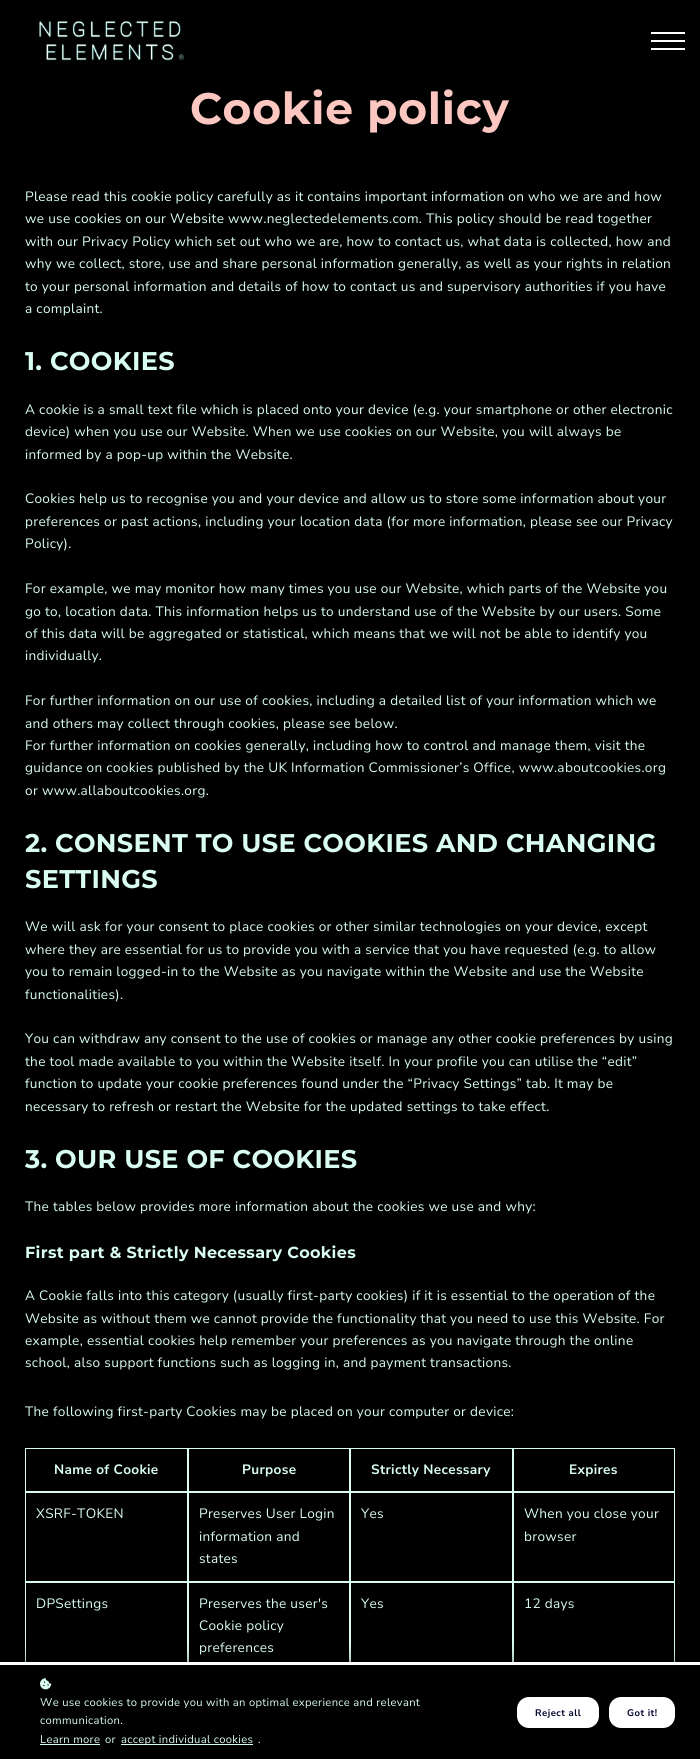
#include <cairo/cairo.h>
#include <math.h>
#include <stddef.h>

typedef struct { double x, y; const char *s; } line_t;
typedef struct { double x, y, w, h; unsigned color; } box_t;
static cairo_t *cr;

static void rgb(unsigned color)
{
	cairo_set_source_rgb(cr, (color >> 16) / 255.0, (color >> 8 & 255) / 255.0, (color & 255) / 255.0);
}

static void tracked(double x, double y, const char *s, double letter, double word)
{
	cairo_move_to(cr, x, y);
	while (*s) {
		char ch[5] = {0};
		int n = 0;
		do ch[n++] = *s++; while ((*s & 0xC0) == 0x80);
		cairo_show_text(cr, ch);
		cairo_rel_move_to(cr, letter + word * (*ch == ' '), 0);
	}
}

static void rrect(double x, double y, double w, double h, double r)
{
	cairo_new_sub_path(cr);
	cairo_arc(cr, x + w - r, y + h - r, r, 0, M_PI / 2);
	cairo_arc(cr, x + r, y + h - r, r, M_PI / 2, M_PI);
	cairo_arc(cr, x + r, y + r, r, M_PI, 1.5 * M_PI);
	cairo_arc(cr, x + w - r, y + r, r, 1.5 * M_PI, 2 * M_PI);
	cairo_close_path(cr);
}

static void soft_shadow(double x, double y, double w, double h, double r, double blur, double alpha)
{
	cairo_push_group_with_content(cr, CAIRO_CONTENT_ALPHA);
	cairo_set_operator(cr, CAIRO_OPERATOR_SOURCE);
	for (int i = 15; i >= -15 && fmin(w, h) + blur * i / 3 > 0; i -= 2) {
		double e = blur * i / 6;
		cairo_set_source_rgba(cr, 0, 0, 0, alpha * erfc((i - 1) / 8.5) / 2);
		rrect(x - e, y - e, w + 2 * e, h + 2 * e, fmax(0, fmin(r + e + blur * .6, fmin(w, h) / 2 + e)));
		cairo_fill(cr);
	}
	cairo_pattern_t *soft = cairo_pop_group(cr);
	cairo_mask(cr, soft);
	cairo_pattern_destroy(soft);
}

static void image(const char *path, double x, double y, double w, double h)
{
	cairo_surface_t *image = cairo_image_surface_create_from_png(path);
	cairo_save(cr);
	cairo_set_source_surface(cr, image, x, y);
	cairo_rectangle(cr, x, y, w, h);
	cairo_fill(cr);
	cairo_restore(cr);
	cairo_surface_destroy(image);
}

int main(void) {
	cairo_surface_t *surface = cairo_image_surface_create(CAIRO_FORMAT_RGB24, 700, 1759);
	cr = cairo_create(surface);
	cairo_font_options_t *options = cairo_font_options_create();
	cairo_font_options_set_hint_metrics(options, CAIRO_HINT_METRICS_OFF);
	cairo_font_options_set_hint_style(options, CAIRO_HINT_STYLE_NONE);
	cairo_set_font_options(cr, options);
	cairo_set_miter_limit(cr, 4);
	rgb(0x000000);
	cairo_paint(cr);
	image("img/1.png", 39, 21, 146, 40);
	{
		static const box_t items[] = {
			{651, 48, 34, 2, 0xffffff},
			{651, 32, 34, 2, 0xffffff},
			{651, 40, 34, 2, 0xffffff},
		};
		for (size_t i = 0; i < sizeof items / sizeof *items; i++) {
			rgb(items[i].color);
			cairo_rectangle(cr, items[i].x, items[i].y, items[i].w, items[i].h);
			cairo_fill(cr);
		}
	}
	cairo_rectangle(cr, 25.5, 1448.5, 162, 43);
	rgb(0xd9fdef);
	cairo_set_line_width(cr, 1);
	cairo_stroke(cr);
	cairo_rectangle(cr, 188.5, 1448.5, 161, 43);
	cairo_stroke(cr);
	cairo_rectangle(cr, 350.5, 1448.5, 162, 43);
	cairo_stroke(cr);
	cairo_rectangle(cr, 513.5, 1448.5, 161, 43);
	cairo_stroke(cr);
	cairo_rectangle(cr, 25.5, 1492.5, 162, 89);
	cairo_stroke(cr);
	cairo_rectangle(cr, 188.5, 1492.5, 161, 89);
	cairo_stroke(cr);
	cairo_rectangle(cr, 350.5, 1492.5, 162, 89);
	cairo_stroke(cr);
	cairo_rectangle(cr, 513.5, 1492.5, 161, 89);
	cairo_stroke(cr);
	cairo_rectangle(cr, 25.5, 1582.5, 162, 88);
	cairo_stroke(cr);
	cairo_rectangle(cr, 188.5, 1582.5, 161, 88);
	cairo_stroke(cr);
	cairo_rectangle(cr, 350.5, 1582.5, 162, 88);
	cairo_stroke(cr);
	cairo_rectangle(cr, 513.5, 1582.5, 161, 88);
	cairo_stroke(cr);
	rgb(0x000000);
	soft_shadow(0, 1662, 700, 97, 0, 10, 0.5);
	rgb(0x000000);
	cairo_rectangle(cr, 25, 1665, 650, 6);
	cairo_fill(cr);
	rgb(0xffffff);
	cairo_rectangle(cr, 0, 1662, 700, 3);
	cairo_fill(cr);
	image("img/2.png", 40, 1678, 12, 12);
	rgb(0xd9fdef);
	cairo_rectangle(cr, 40, 1744, 60, 1);
	cairo_fill(cr);
	cairo_rectangle(cr, 121, 1744, 132, 1);
	cairo_fill(cr);
	rgb(0xffffff);
	rrect(517, 1697, 82, 31, 12);
	cairo_fill(cr);
	rrect(609, 1697, 66, 31, 12);
	cairo_fill(cr);
	cairo_select_font_face(cr, "Montserrat", CAIRO_FONT_SLANT_NORMAL, CAIRO_FONT_WEIGHT_BOLD);
	cairo_set_font_size(cr, 44);
	rgb(0xfcc6c1);
	tracked(190, 124, "Cookie policy", 0.75, 0);
	cairo_select_font_face(cr, "Nunito Sans", CAIRO_FONT_SLANT_NORMAL, CAIRO_FONT_WEIGHT_NORMAL);
	cairo_set_font_size(cr, 13.6);
	rgb(0xd9fdef);
	{
		static const line_t items[] = {
			{25, 201, "Please read this cookie policy carefully as it contains important information on who we are and how"},
			{25, 223, "we use cookies on our Website www.neglectedelements.com. This policy should be read together"},
			{25, 246, "with our Privacy Policy which set out who we are, how to contact us, what data is collected, how and"},
			{25, 268, "why we collect, store, use and share personal information generally, as well as your rights in relation"},
			{25, 291, "to your personal information and details of how to contact us and supervisory authorities if you have"},
			{25, 313, "a complaint."},
		};
		for (size_t i = 0; i < sizeof items / sizeof *items; i++) {
			tracked(items[i].x, items[i].y, items[i].s, 0.32, 0);
		}
	}
	cairo_select_font_face(cr, "Montserrat", CAIRO_FONT_SLANT_NORMAL, CAIRO_FONT_WEIGHT_BOLD);
	cairo_set_font_size(cr, 25.6);
	tracked(25, 370, "1. COOKIES", 0.32, 0);
	cairo_select_font_face(cr, "Nunito Sans", CAIRO_FONT_SLANT_NORMAL, CAIRO_FONT_WEIGHT_NORMAL);
	cairo_set_font_size(cr, 13.6);
	{
		static const line_t items[] = {
			{25, 414, "A cookie is a small text file which is placed onto your device (e.g. your smartphone or other electronic"},
			{25, 436, "device) when you use our Website. When we use cookies on our Website, you will always be"},
			{25, 459, "informed by a pop-up within the Website."},
			{25, 503, "Cookies help us to recognise you and your device and allow us to store some information about your"},
			{25, 526, "preferences or past actions, including your location data (for more information, please see our Privacy"},
			{25, 548, "Policy)."},
			{25, 593, "For example, we may monitor how many times you use our Website, which parts of the Website you"},
			{25, 616, "go to, location data. This information helps us to understand use of the Website by our users. Some"},
			{25, 638, "of this data will be aggregated or statistical, which means that we will not be able to identify you"},
			{25, 660, "individually."},
			{25, 705, "For further information on our use of cookies, including a detailed list of your information which we"},
			{25, 728, "and others may collect through cookies, please see below."},
			{25, 750, "For further information on cookies generally, including how to control and manage them, visit the"},
			{25, 772, "guidance on cookies published by the UK Information Commissioner’s Office, www.aboutcookies.org"},
			{25, 795, "or www.allaboutcookies.org."},
		};
		for (size_t i = 0; i < sizeof items / sizeof *items; i++) {
			tracked(items[i].x, items[i].y, items[i].s, 0.32, 0);
		}
	}
	cairo_select_font_face(cr, "Montserrat", CAIRO_FONT_SLANT_NORMAL, CAIRO_FONT_WEIGHT_BOLD);
	cairo_set_font_size(cr, 25.6);
	tracked(25, 852, "2. CONSENT TO USE COOKIES AND CHANGING", 0.32, 0);
	tracked(25, 888, "SETTINGS", 0.32, 0);
	cairo_select_font_face(cr, "Nunito Sans", CAIRO_FONT_SLANT_NORMAL, CAIRO_FONT_WEIGHT_NORMAL);
	cairo_set_font_size(cr, 13.6);
	{
		static const line_t items[] = {
			{25, 931, "We will ask for your consent to place cookies or other similar technologies on your device, except"},
			{25, 954, "where they are essential for us to provide you with a service that you have requested (e.g. to allow"},
			{25, 976, "you to remain logged-in to the Website as you navigate within the Website and use the Website"},
			{25, 999, "functionalities)."},
			{25, 1043, "You can withdraw any consent to the use of cookies or manage any other cookie preferences by using"},
			{25, 1066, "the tool made available to you within the Website itself. In your profile you can utilise the “edit”"},
			{25, 1088, "function to update your cookie preferences found under the “Privacy Settings” tab. It may be"},
			{25, 1111, "necessary to refresh or restart the Website for the updated settings to take effect."},
		};
		for (size_t i = 0; i < sizeof items / sizeof *items; i++) {
			tracked(items[i].x, items[i].y, items[i].s, 0.32, 0);
		}
	}
	cairo_select_font_face(cr, "Montserrat", CAIRO_FONT_SLANT_NORMAL, CAIRO_FONT_WEIGHT_BOLD);
	cairo_set_font_size(cr, 25.6);
	tracked(25, 1168, "3. OUR USE OF COOKIES", 0.32, 0);
	cairo_select_font_face(cr, "Nunito Sans", CAIRO_FONT_SLANT_NORMAL, CAIRO_FONT_WEIGHT_NORMAL);
	cairo_set_font_size(cr, 13.6);
	tracked(25, 1211, "The tables below provides more information about the cookies we use and why:", 0.32, 0);
	cairo_select_font_face(cr, "Montserrat", CAIRO_FONT_SLANT_NORMAL, CAIRO_FONT_WEIGHT_BOLD);
	cairo_set_font_size(cr, 16);
	tracked(25, 1258, "First part & Strictly Necessary Cookies", 0.32, 0);
	cairo_select_font_face(cr, "Nunito Sans", CAIRO_FONT_SLANT_NORMAL, CAIRO_FONT_WEIGHT_NORMAL);
	cairo_set_font_size(cr, 13.6);
	{
		static const line_t items[] = {
			{25, 1300, "A Cookie falls into this category (usually first-party cookies) if it is essential to the operation of the"},
			{25, 1323, "Website as without them we cannot provide the functionality that you need to use this Website. For"},
			{25, 1345, "example, essential cookies help remember your preferences as you navigate through the online"},
			{25, 1367, "school, also support functions such as logging in, and payment transactions."},
			{25, 1416, "The following first-party Cookies may be placed on your computer or device:"},
		};
		for (size_t i = 0; i < sizeof items / sizeof *items; i++) {
			tracked(items[i].x, items[i].y, items[i].s, 0.32, 0);
		}
	}
	cairo_select_font_face(cr, "Nunito Sans", CAIRO_FONT_SLANT_NORMAL, CAIRO_FONT_WEIGHT_BOLD);
	{
		static const line_t items[] = {
			{54, 1474, "Name of Cookie"},
			{242, 1474, "Purpose"},
			{371, 1474, "Strictly Necessary"},
			{569, 1474, "Expires"},
		};
		for (size_t i = 0; i < sizeof items / sizeof *items; i++) {
			tracked(items[i].x, items[i].y, items[i].s, 0.32, 0);
		}
	}
	cairo_select_font_face(cr, "Nunito Sans", CAIRO_FONT_SLANT_NORMAL, CAIRO_FONT_WEIGHT_NORMAL);
	{
		static const line_t items[] = {
			{36, 1518, "XSRF-TOKEN"},
			{199, 1518, "Preserves User Login"},
			{199, 1541, "information and"},
			{199, 1563, "states"},
			{361, 1518, "Yes"},
			{524, 1518, "When you close your"},
			{524, 1541, "browser"},
			{36, 1608, "DPSettings"},
			{199, 1608, "Preserves the user's"},
			{199, 1630, "Cookie policy"},
			{199, 1652, "preferences"},
			{361, 1608, "Yes"},
			{524, 1608, "12 days"},
		};
		for (size_t i = 0; i < sizeof items / sizeof *items; i++) {
			tracked(items[i].x, items[i].y, items[i].s, 0.32, 0);
		}
	}
	cairo_set_font_size(cr, 11.2);
	{
		static const line_t items[] = {
			{40, 1706, "We use cookies to provide you with an optimal experience and relevant"},
			{40, 1724, "communication."},
			{40, 1743, "Learn more"},
			{105, 1743, "or"},
			{121, 1743, "accept individual cookies"},
			{258, 1743, "."},
		};
		for (size_t i = 0; i < sizeof items / sizeof *items; i++) {
			tracked(items[i].x, items[i].y, items[i].s, 0.32, 0);
		}
	}
	cairo_select_font_face(cr, "Nunito Sans", CAIRO_FONT_SLANT_NORMAL, CAIRO_FONT_WEIGHT_BOLD);
	cairo_set_font_size(cr, 9.5);
	rgb(0x00022c);
	tracked(535, 1716, "Reject all", 0.5, 0);
	tracked(627, 1716, "Got it!", 0.5, 0);
	cairo_surface_write_to_png(surface, "page.png");
	cairo_font_options_destroy(options);
	cairo_destroy(cr);
	cairo_surface_destroy(surface);
	return 0;
}
